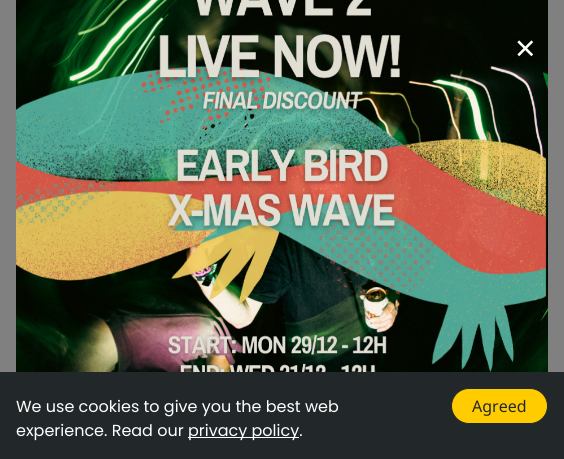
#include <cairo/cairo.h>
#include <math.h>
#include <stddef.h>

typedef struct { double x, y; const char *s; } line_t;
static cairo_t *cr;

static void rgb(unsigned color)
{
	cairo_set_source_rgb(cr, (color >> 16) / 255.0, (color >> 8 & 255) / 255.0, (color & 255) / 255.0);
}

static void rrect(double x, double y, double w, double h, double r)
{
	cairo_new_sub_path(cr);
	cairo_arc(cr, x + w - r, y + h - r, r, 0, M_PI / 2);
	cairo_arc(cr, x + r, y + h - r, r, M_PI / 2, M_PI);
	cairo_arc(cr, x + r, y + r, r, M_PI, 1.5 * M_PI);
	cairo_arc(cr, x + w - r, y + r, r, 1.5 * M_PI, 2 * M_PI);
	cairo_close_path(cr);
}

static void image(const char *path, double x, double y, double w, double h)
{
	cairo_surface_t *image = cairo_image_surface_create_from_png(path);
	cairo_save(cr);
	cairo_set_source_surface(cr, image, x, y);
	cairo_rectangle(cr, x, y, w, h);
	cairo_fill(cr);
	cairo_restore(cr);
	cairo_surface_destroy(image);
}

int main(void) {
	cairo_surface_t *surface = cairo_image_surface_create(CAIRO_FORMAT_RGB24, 564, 459);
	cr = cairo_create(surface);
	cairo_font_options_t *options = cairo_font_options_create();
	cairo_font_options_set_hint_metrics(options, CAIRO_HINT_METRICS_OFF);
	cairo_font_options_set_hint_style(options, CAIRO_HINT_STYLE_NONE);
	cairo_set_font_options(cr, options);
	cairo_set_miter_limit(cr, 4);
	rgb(0x808080);
	cairo_paint(cr);
	image("img/1.png", 16, 0, 532, 372);
	rgb(0x222829);
	cairo_rectangle(cr, 0, 372, 564, 87);
	cairo_fill(cr);
	rgb(0xffffff);
	cairo_rectangle(cr, 188, 437, 111, 1);
	cairo_fill(cr);
	rgb(0xffcc00);
	rrect(451.5, 388.5, 96, 35, 17.5);
	cairo_fill_preserve(cr);
	rgb(0x222829);
	cairo_set_line_width(cr, 1);
	cairo_stroke(cr);
	cairo_select_font_face(cr, "Noto Sans", CAIRO_FONT_SLANT_NORMAL, CAIRO_FONT_WEIGHT_NORMAL);
	cairo_set_font_size(cr, 36);
	rgb(0xffffff);
	cairo_move_to(cr, 515, 61);
	cairo_show_text(cr, "×");
	cairo_select_font_face(cr, "Poppins", CAIRO_FONT_SLANT_NORMAL, CAIRO_FONT_WEIGHT_NORMAL);
	cairo_set_font_size(cr, 16);
	{
		static const line_t items[] = {
			{16, 412, "We use cookies to give you the best web"},
			{16, 436, "experience. Read our"},
			{188, 436, "privacy policy."},
		};
		for (size_t i = 0; i < sizeof items / sizeof *items; i++) {
			cairo_move_to(cr, items[i].x, items[i].y);
			cairo_show_text(cr, items[i].s);
		}
	}
	cairo_select_font_face(cr, "Noto Sans", CAIRO_FONT_SLANT_NORMAL, CAIRO_FONT_WEIGHT_NORMAL);
	rgb(0x222829);
	cairo_move_to(cr, 472, 412);
	cairo_show_text(cr, "Agreed");
	cairo_surface_write_to_png(surface, "page.png");
	cairo_font_options_destroy(options);
	cairo_destroy(cr);
	cairo_surface_destroy(surface);
	return 0;
}
